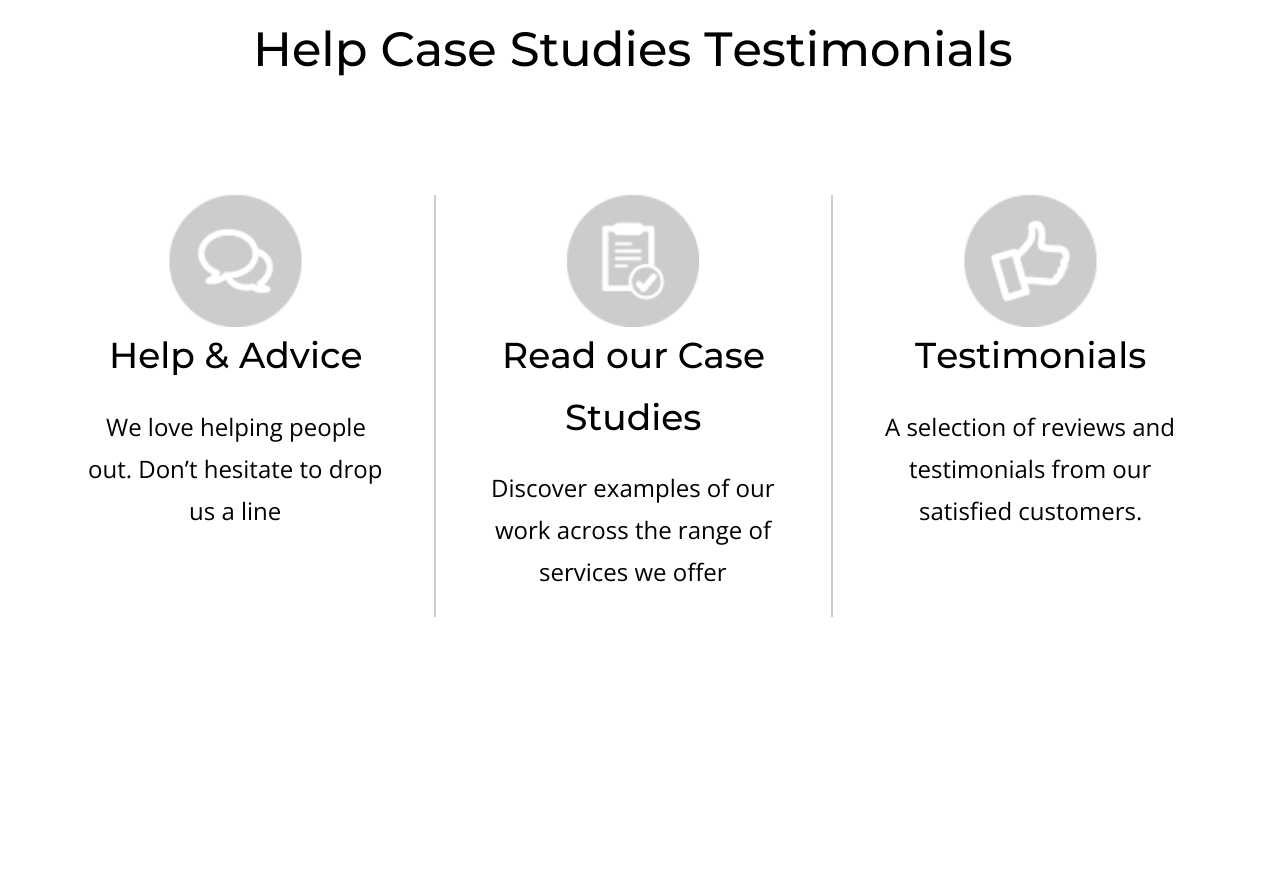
#include <cairo/cairo.h>
#include <math.h>
#include <stddef.h>

typedef struct { double x, y; const char *s; } line_t;
static cairo_t *cr;

static void rgb(unsigned color)
{
	cairo_set_source_rgb(cr, (color >> 16) / 255.0, (color >> 8 & 255) / 255.0, (color & 255) / 255.0);
}

static void image(const char *path, double x, double y, double w, double h)
{
	cairo_surface_t *image = cairo_image_surface_create_from_png(path);
	cairo_save(cr);
	cairo_set_source_surface(cr, image, x, y);
	cairo_rectangle(cr, x, y, w, h);
	cairo_fill(cr);
	cairo_restore(cr);
	cairo_surface_destroy(image);
}

int main(void) {
	cairo_surface_t *surface = cairo_image_surface_create(CAIRO_FORMAT_RGB24, 1266, 893);
	cr = cairo_create(surface);
	cairo_font_options_t *options = cairo_font_options_create();
	cairo_font_options_set_hint_metrics(options, CAIRO_HINT_METRICS_OFF);
	cairo_font_options_set_hint_style(options, CAIRO_HINT_STYLE_NONE);
	cairo_set_font_options(cr, options);
	cairo_set_miter_limit(cr, 4);
	rgb(0xffffff);
	cairo_paint(cr);
	rgb(0xcccccc);
	cairo_rectangle(cr, 434, 195, 2, 422);
	cairo_fill(cr);
	image("img/1.png", 169, 194, 133, 133);
	image("img/2.png", 566, 194, 133, 133);
	cairo_rectangle(cr, 831, 195, 2, 422);
	cairo_fill(cr);
	image("img/3.png", 964, 194, 133, 133);
	cairo_select_font_face(cr, "Montserrat Medium", CAIRO_FONT_SLANT_NORMAL, CAIRO_FONT_WEIGHT_NORMAL);
	cairo_set_font_size(cr, 48);
	rgb(0x000000);
	cairo_move_to(cr, 253, 66);
	cairo_show_text(cr, "Help Case Studies Testimonials");
	cairo_set_font_size(cr, 36);
	cairo_move_to(cr, 109, 368);
	cairo_show_text(cr, "Help & Advice");
	cairo_select_font_face(cr, "Open Sans", CAIRO_FONT_SLANT_NORMAL, CAIRO_FONT_WEIGHT_NORMAL);
	cairo_set_font_size(cr, 24);
	{
		static const line_t items[] = {
			{106, 436, "We love helping people"},
			{88, 478, "out. Don’t hesitate to drop"},
			{189, 520, "us a line"},
		};
		for (size_t i = 0; i < sizeof items / sizeof *items; i++) {
			cairo_move_to(cr, items[i].x, items[i].y);
			cairo_show_text(cr, items[i].s);
		}
	}
	cairo_select_font_face(cr, "Montserrat Medium", CAIRO_FONT_SLANT_NORMAL, CAIRO_FONT_WEIGHT_NORMAL);
	cairo_set_font_size(cr, 36);
	cairo_move_to(cr, 502, 368);
	cairo_show_text(cr, "Read our Case");
	cairo_move_to(cr, 565, 430);
	cairo_show_text(cr, "Studies");
	cairo_select_font_face(cr, "Open Sans", CAIRO_FONT_SLANT_NORMAL, CAIRO_FONT_WEIGHT_NORMAL);
	cairo_set_font_size(cr, 24);
	{
		static const line_t items[] = {
			{491, 497, "Discover examples of our"},
			{495, 539, "work across the range of"},
			{539, 581, "services we offer"},
		};
		for (size_t i = 0; i < sizeof items / sizeof *items; i++) {
			cairo_move_to(cr, items[i].x, items[i].y);
			cairo_show_text(cr, items[i].s);
		}
	}
	cairo_select_font_face(cr, "Montserrat Medium", CAIRO_FONT_SLANT_NORMAL, CAIRO_FONT_WEIGHT_NORMAL);
	cairo_set_font_size(cr, 36);
	cairo_move_to(cr, 915, 368);
	cairo_show_text(cr, "Testimonials");
	cairo_select_font_face(cr, "Open Sans", CAIRO_FONT_SLANT_NORMAL, CAIRO_FONT_WEIGHT_NORMAL);
	cairo_set_font_size(cr, 24);
	{
		static const line_t items[] = {
			{885, 436, "A selection of reviews and"},
			{909, 478, "testimonials from our"},
			{919, 520, "satisfied customers."},
		};
		for (size_t i = 0; i < sizeof items / sizeof *items; i++) {
			cairo_move_to(cr, items[i].x, items[i].y);
			cairo_show_text(cr, items[i].s);
		}
	}
	cairo_surface_write_to_png(surface, "page.png");
	cairo_font_options_destroy(options);
	cairo_destroy(cr);
	cairo_surface_destroy(surface);
	return 0;
}
